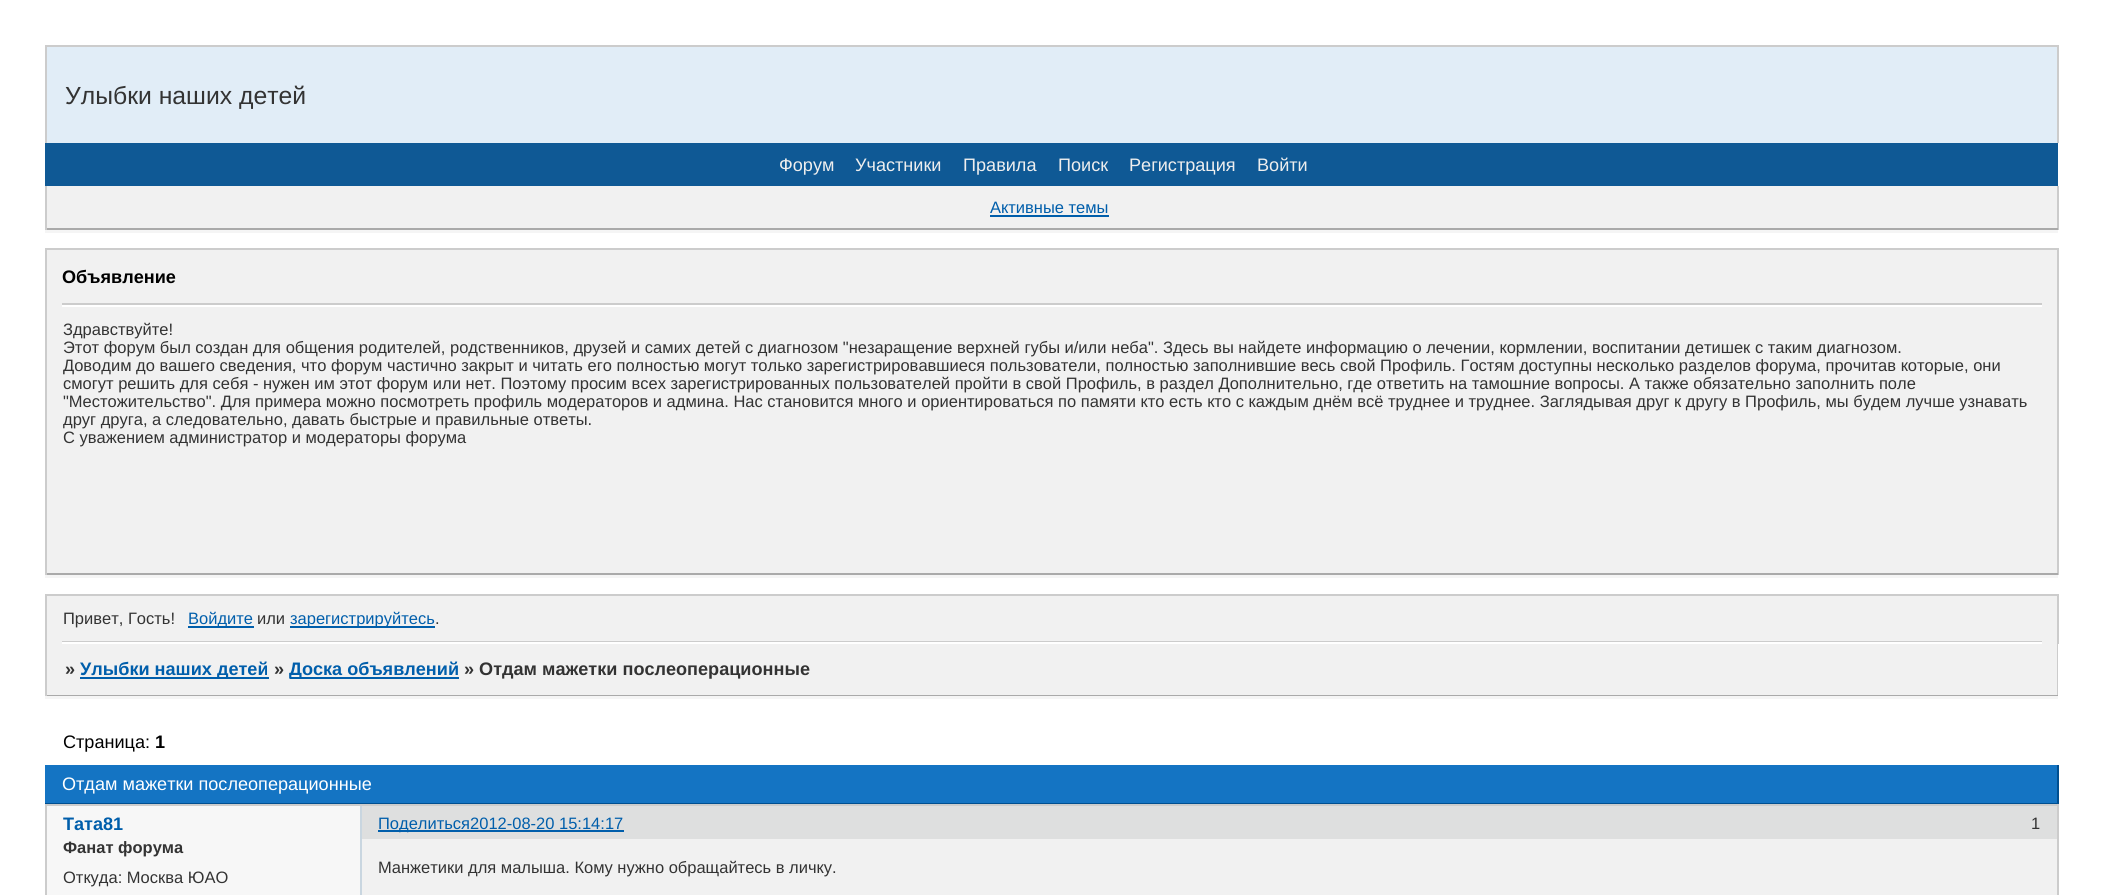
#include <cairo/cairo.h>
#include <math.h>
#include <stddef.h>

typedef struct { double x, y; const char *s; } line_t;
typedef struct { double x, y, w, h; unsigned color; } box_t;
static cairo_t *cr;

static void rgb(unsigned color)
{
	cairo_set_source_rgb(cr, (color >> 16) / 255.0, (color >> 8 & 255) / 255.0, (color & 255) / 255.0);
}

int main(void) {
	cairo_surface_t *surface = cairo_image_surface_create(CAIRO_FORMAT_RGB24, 2103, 895);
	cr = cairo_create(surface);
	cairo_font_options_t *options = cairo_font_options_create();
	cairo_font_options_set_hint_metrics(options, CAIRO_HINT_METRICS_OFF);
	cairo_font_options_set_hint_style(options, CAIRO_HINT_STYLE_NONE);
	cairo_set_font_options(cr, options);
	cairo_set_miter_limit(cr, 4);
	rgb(0xffffff);
	cairo_paint(cr);
	{
		static const box_t items[] = {
			{47, 47, 2010, 96, 0xe1edf7},
			{45, 45, 2013, 2, 0xcccccc},
			{2057, 45, 2, 98, 0xcccccc},
			{45, 45, 2, 98, 0xcccccc},
			{45, 143, 2013, 43, 0x0f5995},
			{45, 230, 2013, 3, 0xf5f5f5},
			{47, 186, 2010, 42, 0xf1f1f1},
			{2057, 186, 2, 44, 0xcccccc},
			{45, 228, 2013, 2, 0xaaaaaa},
			{45, 186, 2, 44, 0xcccccc},
			{990, 215, 119, 2, 0x005eab},
			{45, 575, 2013, 3, 0xf5f5f5},
			{47, 250, 2010, 323, 0xf1f1f1},
			{62, 305, 1980, 2, 0xffffff},
			{62, 303, 1980, 2, 0xcccccc},
			{45, 248, 2013, 2, 0xcccccc},
			{2057, 248, 2, 327, 0xcccccc},
			{45, 573, 2013, 2, 0xaaaaaa},
			{45, 248, 2, 327, 0xcccccc},
			{47, 596, 2010, 99, 0xf1f1f1},
			{45, 594, 2013, 2, 0xcccccc},
			{2057, 594, 2, 50, 0xcccccc},
			{45, 594, 2, 50, 0xcccccc},
			{188, 626, 66, 2, 0x005eab},
			{290, 626, 145, 2, 0x005eab},
			{62, 641, 1980, 1, 0xcccccc},
			{62, 642, 1980, 2, 0xffffff},
			{45, 696, 2013, 3, 0xf5f5f5},
			{2057, 641, 1, 55, 0xcccccc},
			{45, 695, 2013, 1, 0xaaaaaa},
			{45, 641, 2, 55, 0xcccccc},
			{80, 677, 189, 2, 0x005eab},
			{290, 677, 169, 2, 0x005eab},
			{45, 765, 2012, 38, 0x1474c3},
			{2057, 765, 2, 39, 0x004f90},
			{45, 803, 2013, 1, 0x004f90},
			{362, 839, 1695, 56, 0xf1f1f1},
			{47, 806, 313, 89, 0xf7f7f7},
			{45, 804, 2013, 2, 0xcccccc},
			{2057, 804, 2, 91, 0xcccccc},
			{45, 804, 2, 91, 0xcccccc},
			{362, 806, 1695, 33, 0xdedfdf},
			{360, 806, 2, 89, 0xc9d6e0},
			{378, 830, 246, 2, 0x005eab},
		};
		for (size_t i = 0; i < sizeof items / sizeof *items; i++) {
			rgb(items[i].color);
			cairo_rectangle(cr, items[i].x, items[i].y, items[i].w, items[i].h);
			cairo_fill(cr);
		}
	}
	cairo_select_font_face(cr, "Liberation Sans", CAIRO_FONT_SLANT_NORMAL, CAIRO_FONT_WEIGHT_NORMAL);
	cairo_set_font_size(cr, 24.75);
	rgb(0x333333);
	cairo_move_to(cr, 65, 104);
	cairo_show_text(cr, "Улыбки наших детей");
	cairo_set_font_size(cr, 18.1);
	rgb(0xeeeeee);
	{
		static const line_t items[] = {
			{779, 171, "Форум"},
			{855, 171, "Участники"},
			{963, 171, "Правила"},
			{1058, 171, "Поиск"},
			{1129, 171, "Регистрация"},
			{1257, 171, "Войти"},
		};
		for (size_t i = 0; i < sizeof items / sizeof *items; i++) {
			cairo_move_to(cr, items[i].x, items[i].y);
			cairo_show_text(cr, items[i].s);
		}
	}
	cairo_set_font_size(cr, 16.5);
	rgb(0x005eab);
	cairo_move_to(cr, 990, 213);
	cairo_show_text(cr, "Активные темы");
	cairo_select_font_face(cr, "Liberation Sans", CAIRO_FONT_SLANT_NORMAL, CAIRO_FONT_WEIGHT_BOLD);
	cairo_set_font_size(cr, 18.1);
	rgb(0x000000);
	cairo_move_to(cr, 62, 283);
	cairo_show_text(cr, "Объявление");
	cairo_select_font_face(cr, "Liberation Sans", CAIRO_FONT_SLANT_NORMAL, CAIRO_FONT_WEIGHT_NORMAL);
	cairo_set_font_size(cr, 16.5);
	rgb(0x333333);
	{
		static const line_t items[] = {
			{63, 335, "Здравствуйте!"},
			{63, 353, "Этот форум был создан для общения родителей, родственников, друзей и самих детей с диагнозом \"незаращение верхней губы и/или неба\". Здесь вы найдете информацию о лечении, кормлении, воспитании детишек с таким диагнозом."},
			{63, 371, "Доводим до вашего сведения, что форум частично закрыт и читать его полностью могут только зарегистрировавшиеся пользователи, полностью заполнившие весь свой Профиль. Гостям доступны несколько разделов форума, прочитав которые, они"},
			{63, 389, "смогут решить для себя - нужен им этот форум или нет. Поэтому просим всех зарегистрированных пользователей пройти в свой Профиль, в раздел Дополнительно, где ответить на тамошние вопросы. А также обязательно заполнить поле"},
			{63, 407, "\"Местожительство\". Для примера можно посмотреть профиль модераторов и админа. Нас становится много и ориентироваться по памяти кто есть кто с каждым днём всё труднее и труднее. Заглядывая друг к другу в Профиль, мы будем лучше узнавать"},
			{63, 425, "друг друга, а следовательно, давать быстрые и правильные ответы."},
			{63, 443, "С уважением администратор и модераторы форума"},
			{63, 624, "Привет, Гость!"},
		};
		for (size_t i = 0; i < sizeof items / sizeof *items; i++) {
			cairo_move_to(cr, items[i].x, items[i].y);
			cairo_show_text(cr, items[i].s);
		}
	}
	rgb(0x005eab);
	cairo_move_to(cr, 188, 624);
	cairo_show_text(cr, "Войдите");
	rgb(0x333333);
	cairo_move_to(cr, 257, 624);
	cairo_show_text(cr, "или");
	rgb(0x005eab);
	cairo_move_to(cr, 290, 624);
	cairo_show_text(cr, "зарегистрируйтесь");
	rgb(0x333333);
	cairo_move_to(cr, 435, 624);
	cairo_show_text(cr, ".");
	cairo_select_font_face(cr, "Liberation Sans", CAIRO_FONT_SLANT_NORMAL, CAIRO_FONT_WEIGHT_BOLD);
	cairo_set_font_size(cr, 18.1);
	cairo_move_to(cr, 65, 675);
	cairo_show_text(cr, "»");
	rgb(0x005eab);
	cairo_move_to(cr, 80, 675);
	cairo_show_text(cr, "Улыбки наших детей");
	rgb(0x333333);
	cairo_move_to(cr, 274, 675);
	cairo_show_text(cr, "»");
	rgb(0x005eab);
	cairo_move_to(cr, 289, 675);
	cairo_show_text(cr, "Доска объявлений");
	rgb(0x333333);
	cairo_move_to(cr, 464, 675);
	cairo_show_text(cr, "» Отдам мажетки послеоперационные");
	cairo_select_font_face(cr, "Liberation Sans", CAIRO_FONT_SLANT_NORMAL, CAIRO_FONT_WEIGHT_NORMAL);
	rgb(0x000000);
	cairo_move_to(cr, 63, 748);
	cairo_show_text(cr, "Страница:");
	cairo_select_font_face(cr, "Liberation Sans", CAIRO_FONT_SLANT_NORMAL, CAIRO_FONT_WEIGHT_BOLD);
	cairo_move_to(cr, 155, 748);
	cairo_show_text(cr, "1");
	cairo_select_font_face(cr, "Liberation Sans", CAIRO_FONT_SLANT_NORMAL, CAIRO_FONT_WEIGHT_NORMAL);
	rgb(0xffffff);
	cairo_move_to(cr, 62, 790);
	cairo_show_text(cr, "Отдам мажетки послеоперационные");
	cairo_select_font_face(cr, "Liberation Sans", CAIRO_FONT_SLANT_NORMAL, CAIRO_FONT_WEIGHT_BOLD);
	rgb(0x005eab);
	cairo_move_to(cr, 63, 830);
	cairo_show_text(cr, "Тата81");
	cairo_set_font_size(cr, 16.5);
	rgb(0x333333);
	cairo_move_to(cr, 63, 853);
	cairo_show_text(cr, "Фанат форума");
	cairo_select_font_face(cr, "Liberation Sans", CAIRO_FONT_SLANT_NORMAL, CAIRO_FONT_WEIGHT_NORMAL);
	cairo_move_to(cr, 63, 883);
	cairo_show_text(cr, "Откуда: Москва ЮАО");
	cairo_move_to(cr, 378, 873);
	cairo_show_text(cr, "Манжетики для малыша. Кому нужно обращайтесь в личку.");
	rgb(0x005eab);
	cairo_move_to(cr, 378, 829);
	cairo_show_text(cr, "Поделиться2012-08-20 15:14:17");
	rgb(0x333333);
	cairo_move_to(cr, 2031, 829);
	cairo_show_text(cr, "1");
	cairo_surface_write_to_png(surface, "page.png");
	cairo_font_options_destroy(options);
	cairo_destroy(cr);
	cairo_surface_destroy(surface);
	return 0;
}
